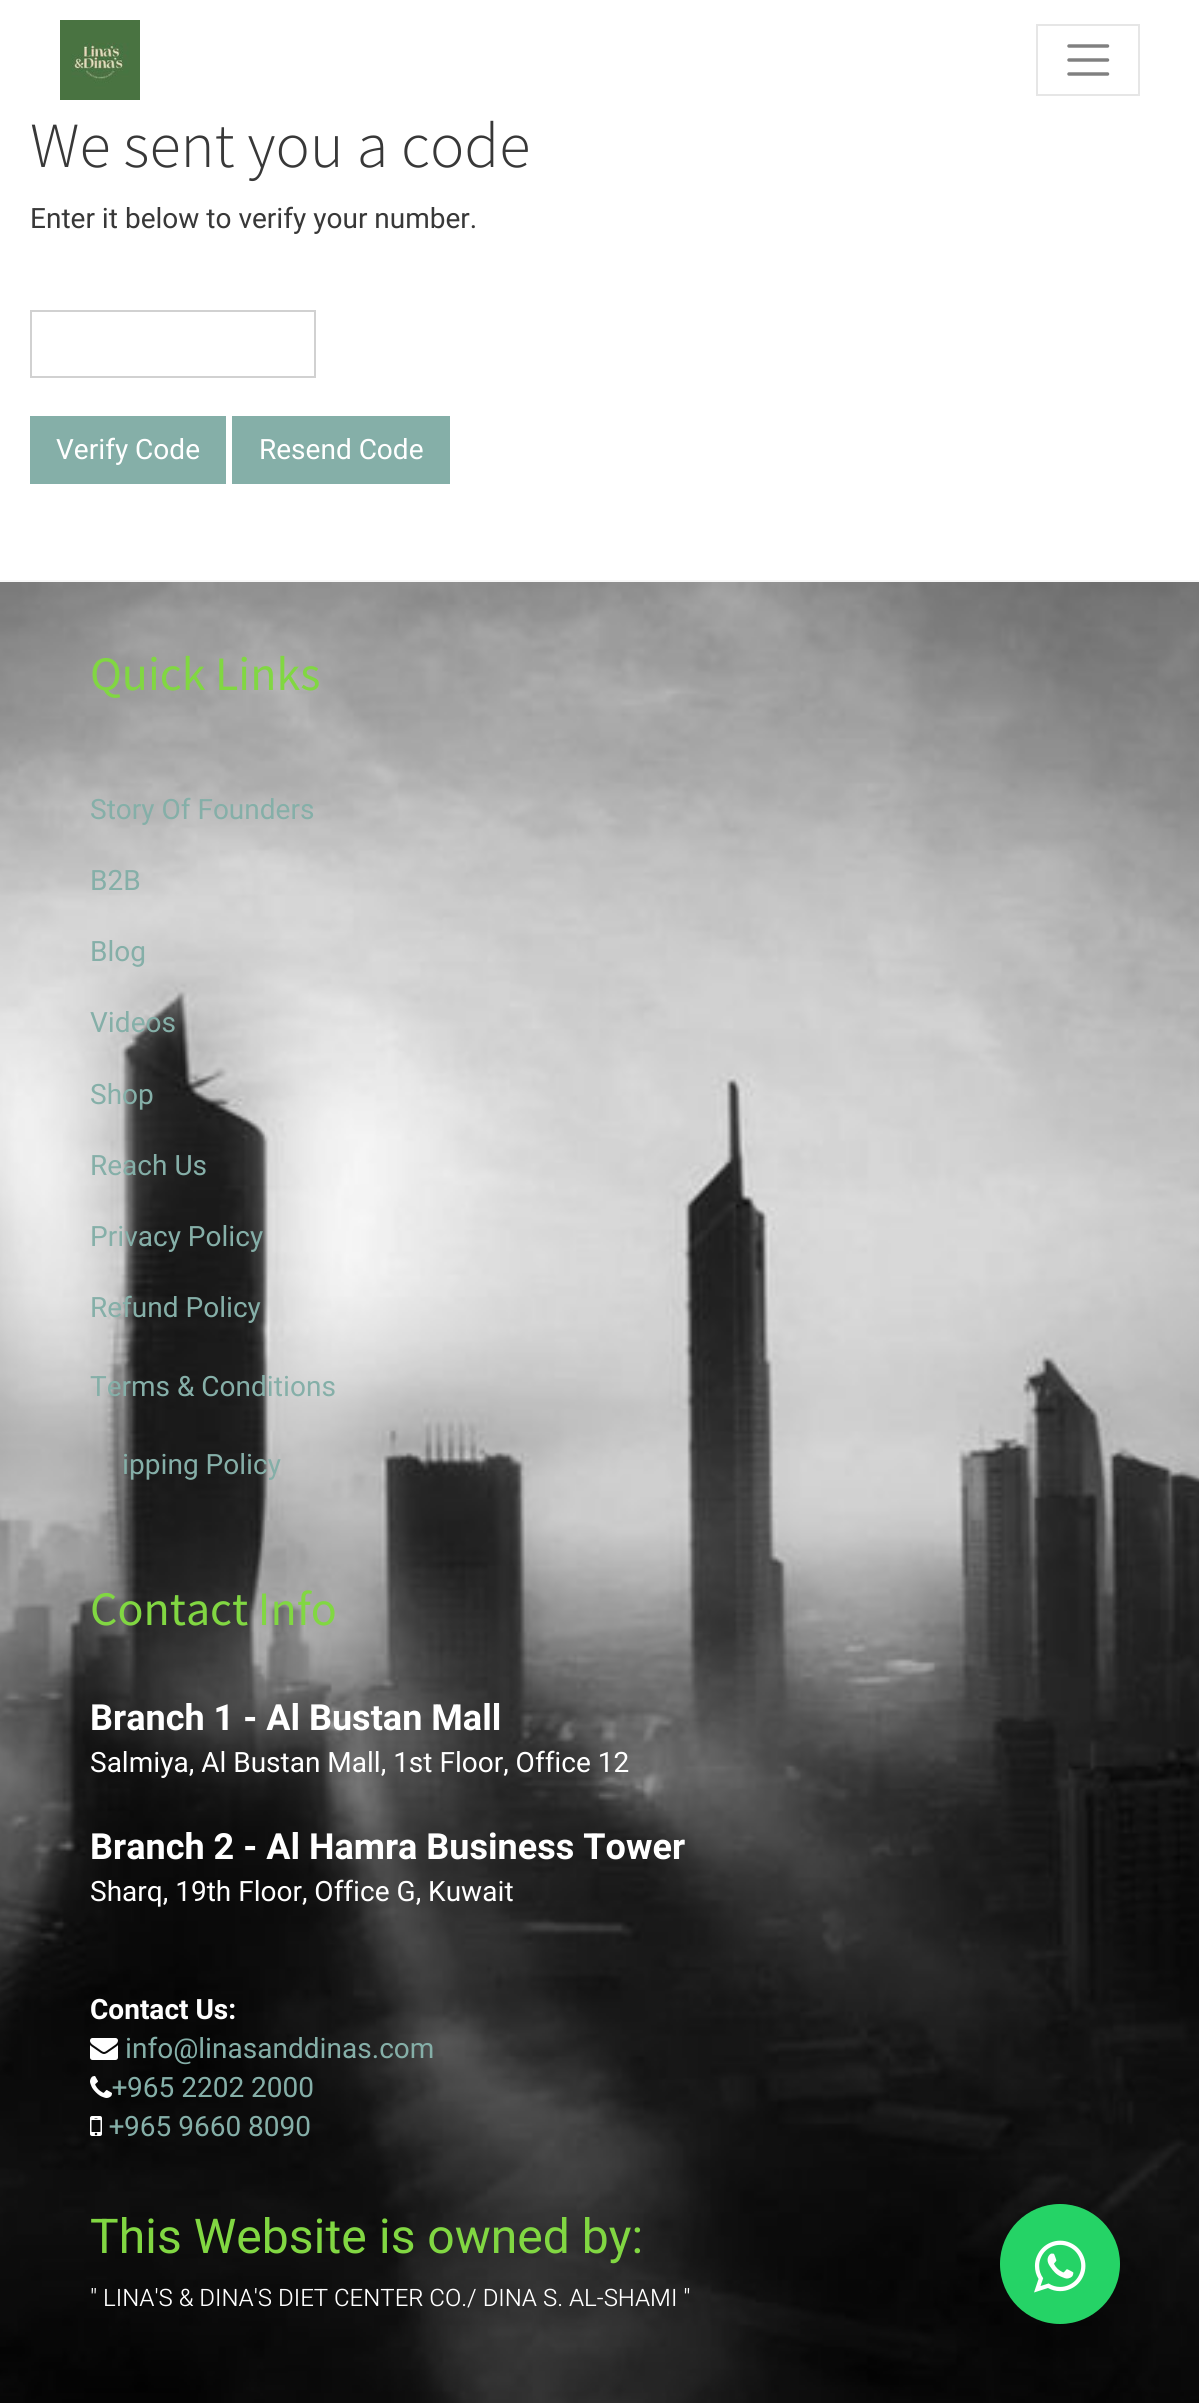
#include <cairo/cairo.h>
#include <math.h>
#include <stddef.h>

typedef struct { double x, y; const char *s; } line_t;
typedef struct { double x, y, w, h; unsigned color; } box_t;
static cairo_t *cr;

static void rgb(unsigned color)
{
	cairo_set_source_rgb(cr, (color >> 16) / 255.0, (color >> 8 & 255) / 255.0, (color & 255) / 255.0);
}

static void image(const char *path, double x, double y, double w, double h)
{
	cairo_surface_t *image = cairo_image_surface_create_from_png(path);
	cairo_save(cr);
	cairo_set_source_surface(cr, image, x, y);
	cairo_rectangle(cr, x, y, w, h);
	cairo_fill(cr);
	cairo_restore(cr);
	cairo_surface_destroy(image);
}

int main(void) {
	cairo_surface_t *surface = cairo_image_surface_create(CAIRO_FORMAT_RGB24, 1199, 2403);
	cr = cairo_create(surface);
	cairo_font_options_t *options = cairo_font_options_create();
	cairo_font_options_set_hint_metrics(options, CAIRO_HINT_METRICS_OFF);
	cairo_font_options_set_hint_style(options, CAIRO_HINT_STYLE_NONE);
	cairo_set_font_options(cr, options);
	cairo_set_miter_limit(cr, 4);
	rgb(0xffffff);
	cairo_paint(cr);
	image("img/1.png", 60, 20, 80, 80);
	cairo_rectangle(cr, 1037, 25, 102, 70);
	rgb(0xe6e6e6);
	cairo_stroke(cr);
	cairo_new_path(cr);
	cairo_move_to(cr, 1069, 46);
	cairo_line_to(cr, 1107.5, 46);
	cairo_move_to(cr, 1069, 60);
	cairo_line_to(cr, 1107.5, 60);
	cairo_move_to(cr, 1069, 74);
	cairo_line_to(cr, 1107.5, 74);
	rgb(0x808080);
	cairo_set_line_width(cr, 3.5);
	cairo_set_line_cap(cr, CAIRO_LINE_CAP_ROUND);
	cairo_stroke(cr);
	cairo_rectangle(cr, 31, 311, 284, 66);
	rgb(0xd1d1d1);
	cairo_set_line_width(cr, 2);
	cairo_set_line_cap(cr, CAIRO_LINE_CAP_BUTT);
	cairo_stroke(cr);
	{
		static const box_t items[] = {
			{30, 416, 196, 68, 0x85afa8},
			{232, 416, 218, 68, 0x85afa8},
			{0, 580, 1199, 2, 0xf8f8f8},
		};
		for (size_t i = 0; i < sizeof items / sizeof *items; i++) {
			rgb(items[i].color);
			cairo_rectangle(cr, items[i].x, items[i].y, items[i].w, items[i].h);
			cairo_fill(cr);
		}
	}
	image("img/2.png", 0, 582, 1199, 1821);
	image("img/3.png", 90, 2038, 28, 22);
	image("img/4.png", 90, 2076, 22, 22);
	image("img/5.png", 90, 2116, 12, 20);
	rgb(0x25d366);
	cairo_arc(cr, 1060, 2264, 60, 0, 2 * M_PI);
	cairo_fill(cr);
	image("img/6.png", 1034, 2240, 52, 53);
	cairo_select_font_face(cr, "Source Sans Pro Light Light", CAIRO_FONT_SLANT_NORMAL, CAIRO_FONT_WEIGHT_NORMAL);
	cairo_set_font_size(cr, 64.25);
	rgb(0x383838);
	cairo_move_to(cr, 30, 167);
	cairo_show_text(cr, "We sent you a code");
	cairo_select_font_face(cr, "Heebo", CAIRO_FONT_SLANT_NORMAL, CAIRO_FONT_WEIGHT_NORMAL);
	cairo_set_font_size(cr, 28);
	cairo_move_to(cr, 30, 228);
	cairo_show_text(cr, "Enter it below to verify your number.");
	rgb(0xffffff);
	cairo_move_to(cr, 56, 459);
	cairo_show_text(cr, "Verify Code");
	cairo_move_to(cr, 259, 459);
	cairo_show_text(cr, "Resend Code");
	cairo_select_font_face(cr, "Source Sans Pro", CAIRO_FONT_SLANT_NORMAL, CAIRO_FONT_WEIGHT_NORMAL);
	cairo_set_font_size(cr, 48);
	rgb(0x81d742);
	cairo_move_to(cr, 90, 690);
	cairo_show_text(cr, "Quick Links");
	cairo_select_font_face(cr, "Heebo", CAIRO_FONT_SLANT_NORMAL, CAIRO_FONT_WEIGHT_NORMAL);
	cairo_set_font_size(cr, 28);
	rgb(0x85afa8);
	{
		static const line_t items[] = {
			{90, 819, "Story Of Founders"},
			{90, 890, "B2B"},
			{90, 961, "Blog"},
			{90, 1032, "Videos"},
			{90, 1104, "Shop"},
			{90, 1175, "Reach Us"},
			{90, 1246, "Privacy Policy"},
			{90, 1317, "Refund Policy"},
			{90, 1396, "Terms & Conditions"},
			{122, 1474, "ipping Policy"},
		};
		for (size_t i = 0; i < sizeof items / sizeof *items; i++) {
			cairo_move_to(cr, items[i].x, items[i].y);
			cairo_show_text(cr, items[i].s);
		}
	}
	cairo_select_font_face(cr, "Source Sans Pro", CAIRO_FONT_SLANT_NORMAL, CAIRO_FONT_WEIGHT_NORMAL);
	cairo_set_font_size(cr, 48);
	rgb(0x81d742);
	cairo_move_to(cr, 90, 1625);
	cairo_show_text(cr, "Contact Info");
	cairo_select_font_face(cr, "Heebo", CAIRO_FONT_SLANT_NORMAL, CAIRO_FONT_WEIGHT_BOLD);
	cairo_set_font_size(cr, 36);
	rgb(0xffffff);
	cairo_move_to(cr, 90, 1730);
	cairo_show_text(cr, "Branch 1 - Al Bustan Mall");
	cairo_select_font_face(cr, "Heebo", CAIRO_FONT_SLANT_NORMAL, CAIRO_FONT_WEIGHT_NORMAL);
	cairo_set_font_size(cr, 28);
	cairo_move_to(cr, 90, 1772);
	cairo_show_text(cr, "Salmiya, Al Bustan Mall, 1st Floor, Office 12");
	cairo_select_font_face(cr, "Heebo", CAIRO_FONT_SLANT_NORMAL, CAIRO_FONT_WEIGHT_BOLD);
	cairo_set_font_size(cr, 36);
	cairo_move_to(cr, 90, 1859);
	cairo_show_text(cr, "Branch 2 - Al Hamra Business Tower");
	cairo_select_font_face(cr, "Heebo", CAIRO_FONT_SLANT_NORMAL, CAIRO_FONT_WEIGHT_NORMAL);
	cairo_set_font_size(cr, 28);
	cairo_move_to(cr, 90, 1901);
	cairo_show_text(cr, "Sharq, 19th Floor, Office G, Kuwait");
	cairo_select_font_face(cr, "Heebo", CAIRO_FONT_SLANT_NORMAL, CAIRO_FONT_WEIGHT_BOLD);
	cairo_move_to(cr, 90, 2019);
	cairo_show_text(cr, "Contact Us:");
	cairo_select_font_face(cr, "Heebo", CAIRO_FONT_SLANT_NORMAL, CAIRO_FONT_WEIGHT_NORMAL);
	rgb(0x85afa8);
	{
		static const line_t items[] = {
			{125, 2058, "info@linasanddinas.com"},
			{112, 2097, "+965 2202 2000"},
			{109, 2136, "+965 9660 8090"},
		};
		for (size_t i = 0; i < sizeof items / sizeof *items; i++) {
			cairo_move_to(cr, items[i].x, items[i].y);
			cairo_show_text(cr, items[i].s);
		}
	}
	cairo_set_font_size(cr, 48);
	rgb(0x81d742);
	cairo_move_to(cr, 90, 2253);
	cairo_show_text(cr, "This Website is owned by:");
	cairo_select_font_face(cr, "Heebo Light", CAIRO_FONT_SLANT_NORMAL, CAIRO_FONT_WEIGHT_NORMAL);
	cairo_set_font_size(cr, 24);
	rgb(0xffffff);
	cairo_move_to(cr, 90, 2306);
	cairo_show_text(cr, "\" LINA'S & DINA'S DIET CENTER CO./ DINA S. AL-SHAMI \"");
	cairo_surface_write_to_png(surface, "page.png");
	cairo_font_options_destroy(options);
	cairo_destroy(cr);
	cairo_surface_destroy(surface);
	return 0;
}
